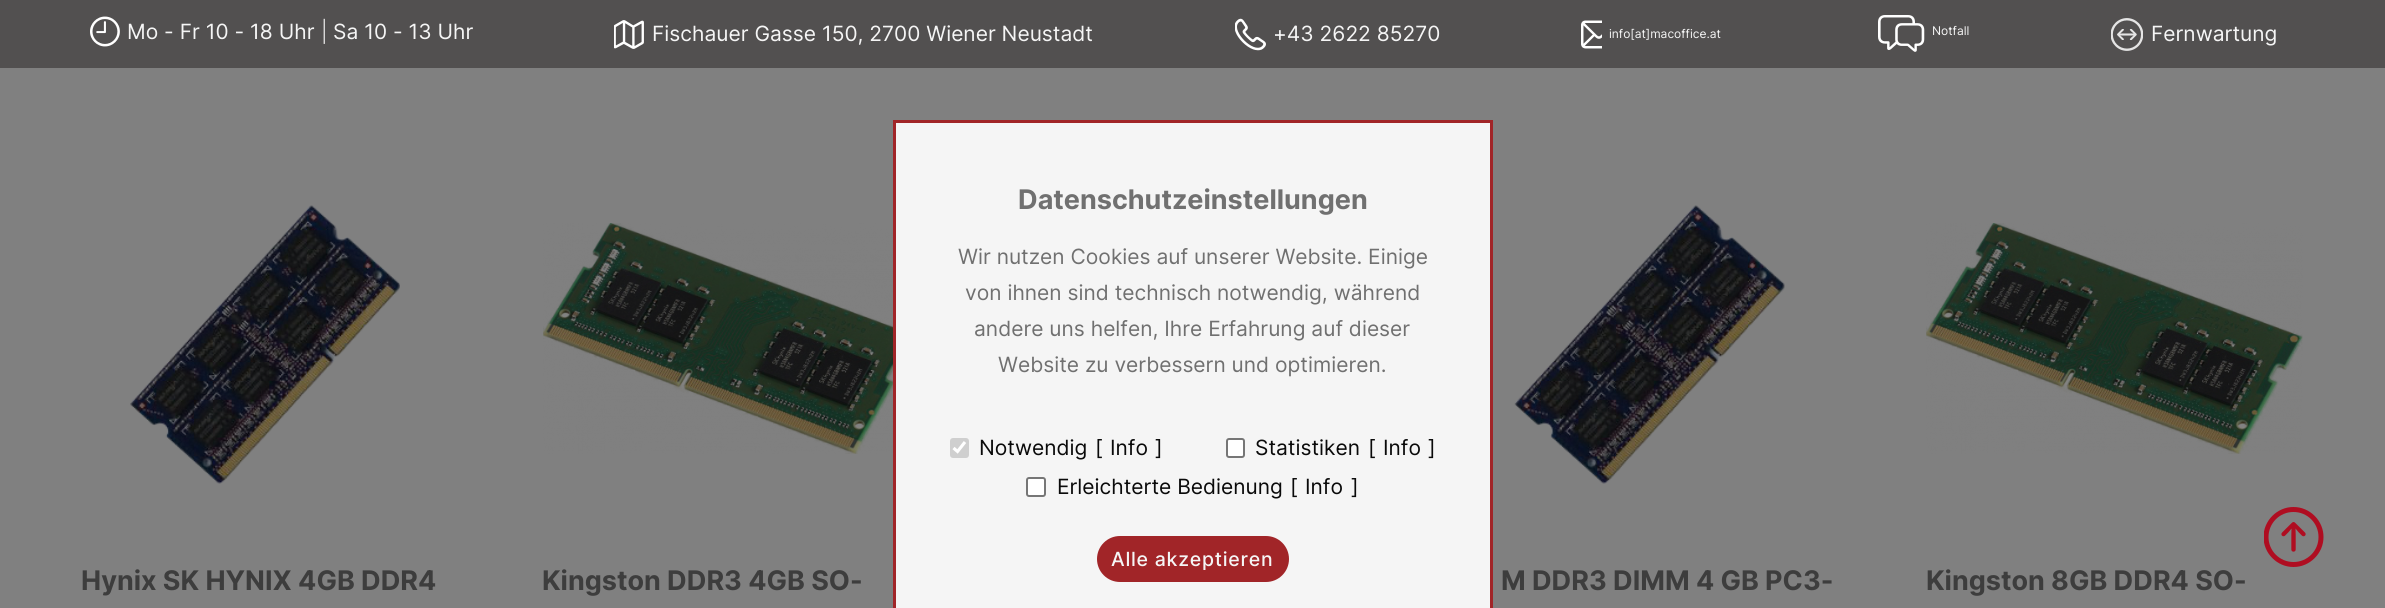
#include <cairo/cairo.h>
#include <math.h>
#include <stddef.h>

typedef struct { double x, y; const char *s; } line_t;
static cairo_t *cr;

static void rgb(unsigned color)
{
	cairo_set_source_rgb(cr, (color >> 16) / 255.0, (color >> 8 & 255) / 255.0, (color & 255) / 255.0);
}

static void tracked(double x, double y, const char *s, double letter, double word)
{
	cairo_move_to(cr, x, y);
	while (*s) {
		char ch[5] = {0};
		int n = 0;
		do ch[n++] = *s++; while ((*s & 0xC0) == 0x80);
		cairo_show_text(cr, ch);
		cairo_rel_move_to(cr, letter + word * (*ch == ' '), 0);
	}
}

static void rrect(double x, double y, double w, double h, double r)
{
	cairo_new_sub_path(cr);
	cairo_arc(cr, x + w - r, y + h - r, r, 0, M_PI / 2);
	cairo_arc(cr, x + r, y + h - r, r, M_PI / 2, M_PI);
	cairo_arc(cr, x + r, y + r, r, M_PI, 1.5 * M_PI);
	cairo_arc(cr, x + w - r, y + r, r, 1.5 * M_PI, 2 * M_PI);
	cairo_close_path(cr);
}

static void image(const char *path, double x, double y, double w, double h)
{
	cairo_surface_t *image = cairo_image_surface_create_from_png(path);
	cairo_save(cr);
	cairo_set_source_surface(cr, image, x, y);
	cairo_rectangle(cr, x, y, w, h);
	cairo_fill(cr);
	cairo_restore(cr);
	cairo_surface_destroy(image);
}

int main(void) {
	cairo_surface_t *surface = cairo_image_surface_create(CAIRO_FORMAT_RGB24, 2385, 608);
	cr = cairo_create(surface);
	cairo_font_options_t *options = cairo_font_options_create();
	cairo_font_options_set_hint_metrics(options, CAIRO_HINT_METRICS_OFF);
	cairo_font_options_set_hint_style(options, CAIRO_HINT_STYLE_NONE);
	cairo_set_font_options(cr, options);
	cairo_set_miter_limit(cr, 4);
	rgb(0x808080);
	cairo_paint(cr);
	rgb(0x525050);
	cairo_rectangle(cr, 0, 0, 2385, 68);
	cairo_fill(cr);
	image("img/1.png", 90, 16, 30, 31);
	image("img/2.png", 614, 20, 30, 29);
	image("img/3.png", 1235, 18, 31, 33);
	image("img/4.png", 1581, 20, 21, 29);
	image("img/5.png", 1878, 15, 47, 37);
	image("img/6.png", 2111, 18, 32, 33);
	cairo_rectangle(cr, 894.5, 121.5, 597, 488);
	rgb(0xa12528);
	cairo_set_line_width(cr, 3);
	cairo_stroke(cr);
	rgb(0xf5f5f5);
	cairo_rectangle(cr, 896, 123, 594, 485);
	cairo_fill(cr);
	rgb(0xcfcfcf);
	rrect(950, 438, 19, 20, 3);
	cairo_fill(cr);
	cairo_new_path(cr);
	cairo_move_to(cr, 953.5, 448);
	cairo_line_to(cr, 957.5, 451.5);
	cairo_line_to(cr, 965, 442);
	rgb(0xffffff);
	cairo_set_line_width(cr, 3.1);
	cairo_stroke(cr);
	rrect(1227, 439, 17, 18, 2);
	cairo_fill_preserve(cr);
	rgb(0x767676);
	cairo_set_line_width(cr, 2);
	cairo_stroke(cr);
	rgb(0xffffff);
	rrect(1027, 478, 18, 18, 2);
	cairo_fill_preserve(cr);
	rgb(0x767676);
	cairo_stroke(cr);
	rgb(0xa12528);
	rrect(1097, 536, 192, 46, 23);
	cairo_fill(cr);
	image("img/7.png", 2264, 507, 60, 60);
	image("img/8.png", 130, 205, 270, 279);
	image("img/9.png", 543, 223, 350, 231);
	image("img/10.png", 1514, 205, 271, 279);
	image("img/11.png", 1926, 223, 377, 231);
	cairo_select_font_face(cr, "Inter", CAIRO_FONT_SLANT_NORMAL, CAIRO_FONT_WEIGHT_NORMAL);
	cairo_set_font_size(cr, 21);
	rgb(0xf5f5f5);
	cairo_move_to(cr, 127, 39);
	cairo_show_text(cr, "Mo - Fr 10 - 18 Uhr");
	cairo_select_font_face(cr, "Inter Light", CAIRO_FONT_SLANT_NORMAL, CAIRO_FONT_WEIGHT_NORMAL);
	cairo_move_to(cr, 321, 39);
	cairo_show_text(cr, "|");
	cairo_select_font_face(cr, "Inter", CAIRO_FONT_SLANT_NORMAL, CAIRO_FONT_WEIGHT_NORMAL);
	{
		static const line_t items[] = {
			{333, 39, "Sa 10 - 13 Uhr"},
			{652, 41, "Fischauer Gasse 150, 2700 Wiener Neustadt"},
			{1273, 41, "+43 2622 85270"},
		};
		for (size_t i = 0; i < sizeof items / sizeof *items; i++) {
			cairo_move_to(cr, items[i].x, items[i].y);
			cairo_show_text(cr, items[i].s);
		}
	}
	cairo_set_font_size(cr, 12);
	cairo_move_to(cr, 1609, 38);
	cairo_show_text(cr, "info[at]macoffice.at");
	cairo_move_to(cr, 1932, 35);
	cairo_show_text(cr, "Notfall");
	cairo_set_font_size(cr, 21);
	cairo_move_to(cr, 2151, 41);
	cairo_show_text(cr, "Fernwartung");
	cairo_select_font_face(cr, "Inter", CAIRO_FONT_SLANT_NORMAL, CAIRO_FONT_WEIGHT_BOLD);
	cairo_set_font_size(cr, 27);
	rgb(0x707070);
	cairo_move_to(cr, 1018, 209);
	cairo_show_text(cr, "Datenschutzeinstellungen");
	cairo_select_font_face(cr, "Inter", CAIRO_FONT_SLANT_NORMAL, CAIRO_FONT_WEIGHT_NORMAL);
	cairo_set_font_size(cr, 21);
	{
		static const line_t items[] = {
			{958, 264, "Wir nutzen Cookies auf unserer Website. Einige"},
			{965, 300, "von ihnen sind technisch notwendig, während"},
			{974, 336, "andere uns helfen, Ihre Erfahrung auf dieser"},
			{998, 372, "Website zu verbessern und optimieren."},
		};
		for (size_t i = 0; i < sizeof items / sizeof *items; i++) {
			cairo_move_to(cr, items[i].x, items[i].y);
			cairo_show_text(cr, items[i].s);
		}
	}
	rgb(0x0a0a0a);
	{
		static const line_t items[] = {
			{979, 455, "Notwendig"},
			{1095, 455, "["},
			{1110, 455, "Info"},
			{1155, 455, "]"},
			{1255, 455, "Statistiken"},
			{1368, 455, "["},
			{1383, 455, "Info"},
			{1428, 455, "]"},
			{1057, 494, "Erleichterte Bedienung"},
			{1290, 494, "["},
			{1305, 494, "Info"},
			{1351, 494, "]"},
		};
		for (size_t i = 0; i < sizeof items / sizeof *items; i++) {
			cairo_move_to(cr, items[i].x, items[i].y);
			cairo_show_text(cr, items[i].s);
		}
	}
	cairo_select_font_face(cr, "Inter Medium", CAIRO_FONT_SLANT_NORMAL, CAIRO_FONT_WEIGHT_NORMAL);
	cairo_set_font_size(cr, 19.5);
	rgb(0xf5f5f5);
	tracked(1111, 566, "Alle akzeptieren", 0.75, 0);
	cairo_select_font_face(cr, "Inter", CAIRO_FONT_SLANT_NORMAL, CAIRO_FONT_WEIGHT_BOLD);
	cairo_set_font_size(cr, 27);
	rgb(0x3d3d3d);
	{
		static const line_t items[] = {
			{81, 590, "Hynix SK HYNIX 4GB DDR4"},
			{542, 590, "Kingston DDR3 4GB SO-"},
			{1501, 590, "M DDR3 DIMM 4 GB PC3-"},
			{1926, 590, "Kingston 8GB DDR4 SO-"},
		};
		for (size_t i = 0; i < sizeof items / sizeof *items; i++) {
			cairo_move_to(cr, items[i].x, items[i].y);
			cairo_show_text(cr, items[i].s);
		}
	}
	cairo_surface_write_to_png(surface, "page.png");
	cairo_font_options_destroy(options);
	cairo_destroy(cr);
	cairo_surface_destroy(surface);
	return 0;
}
